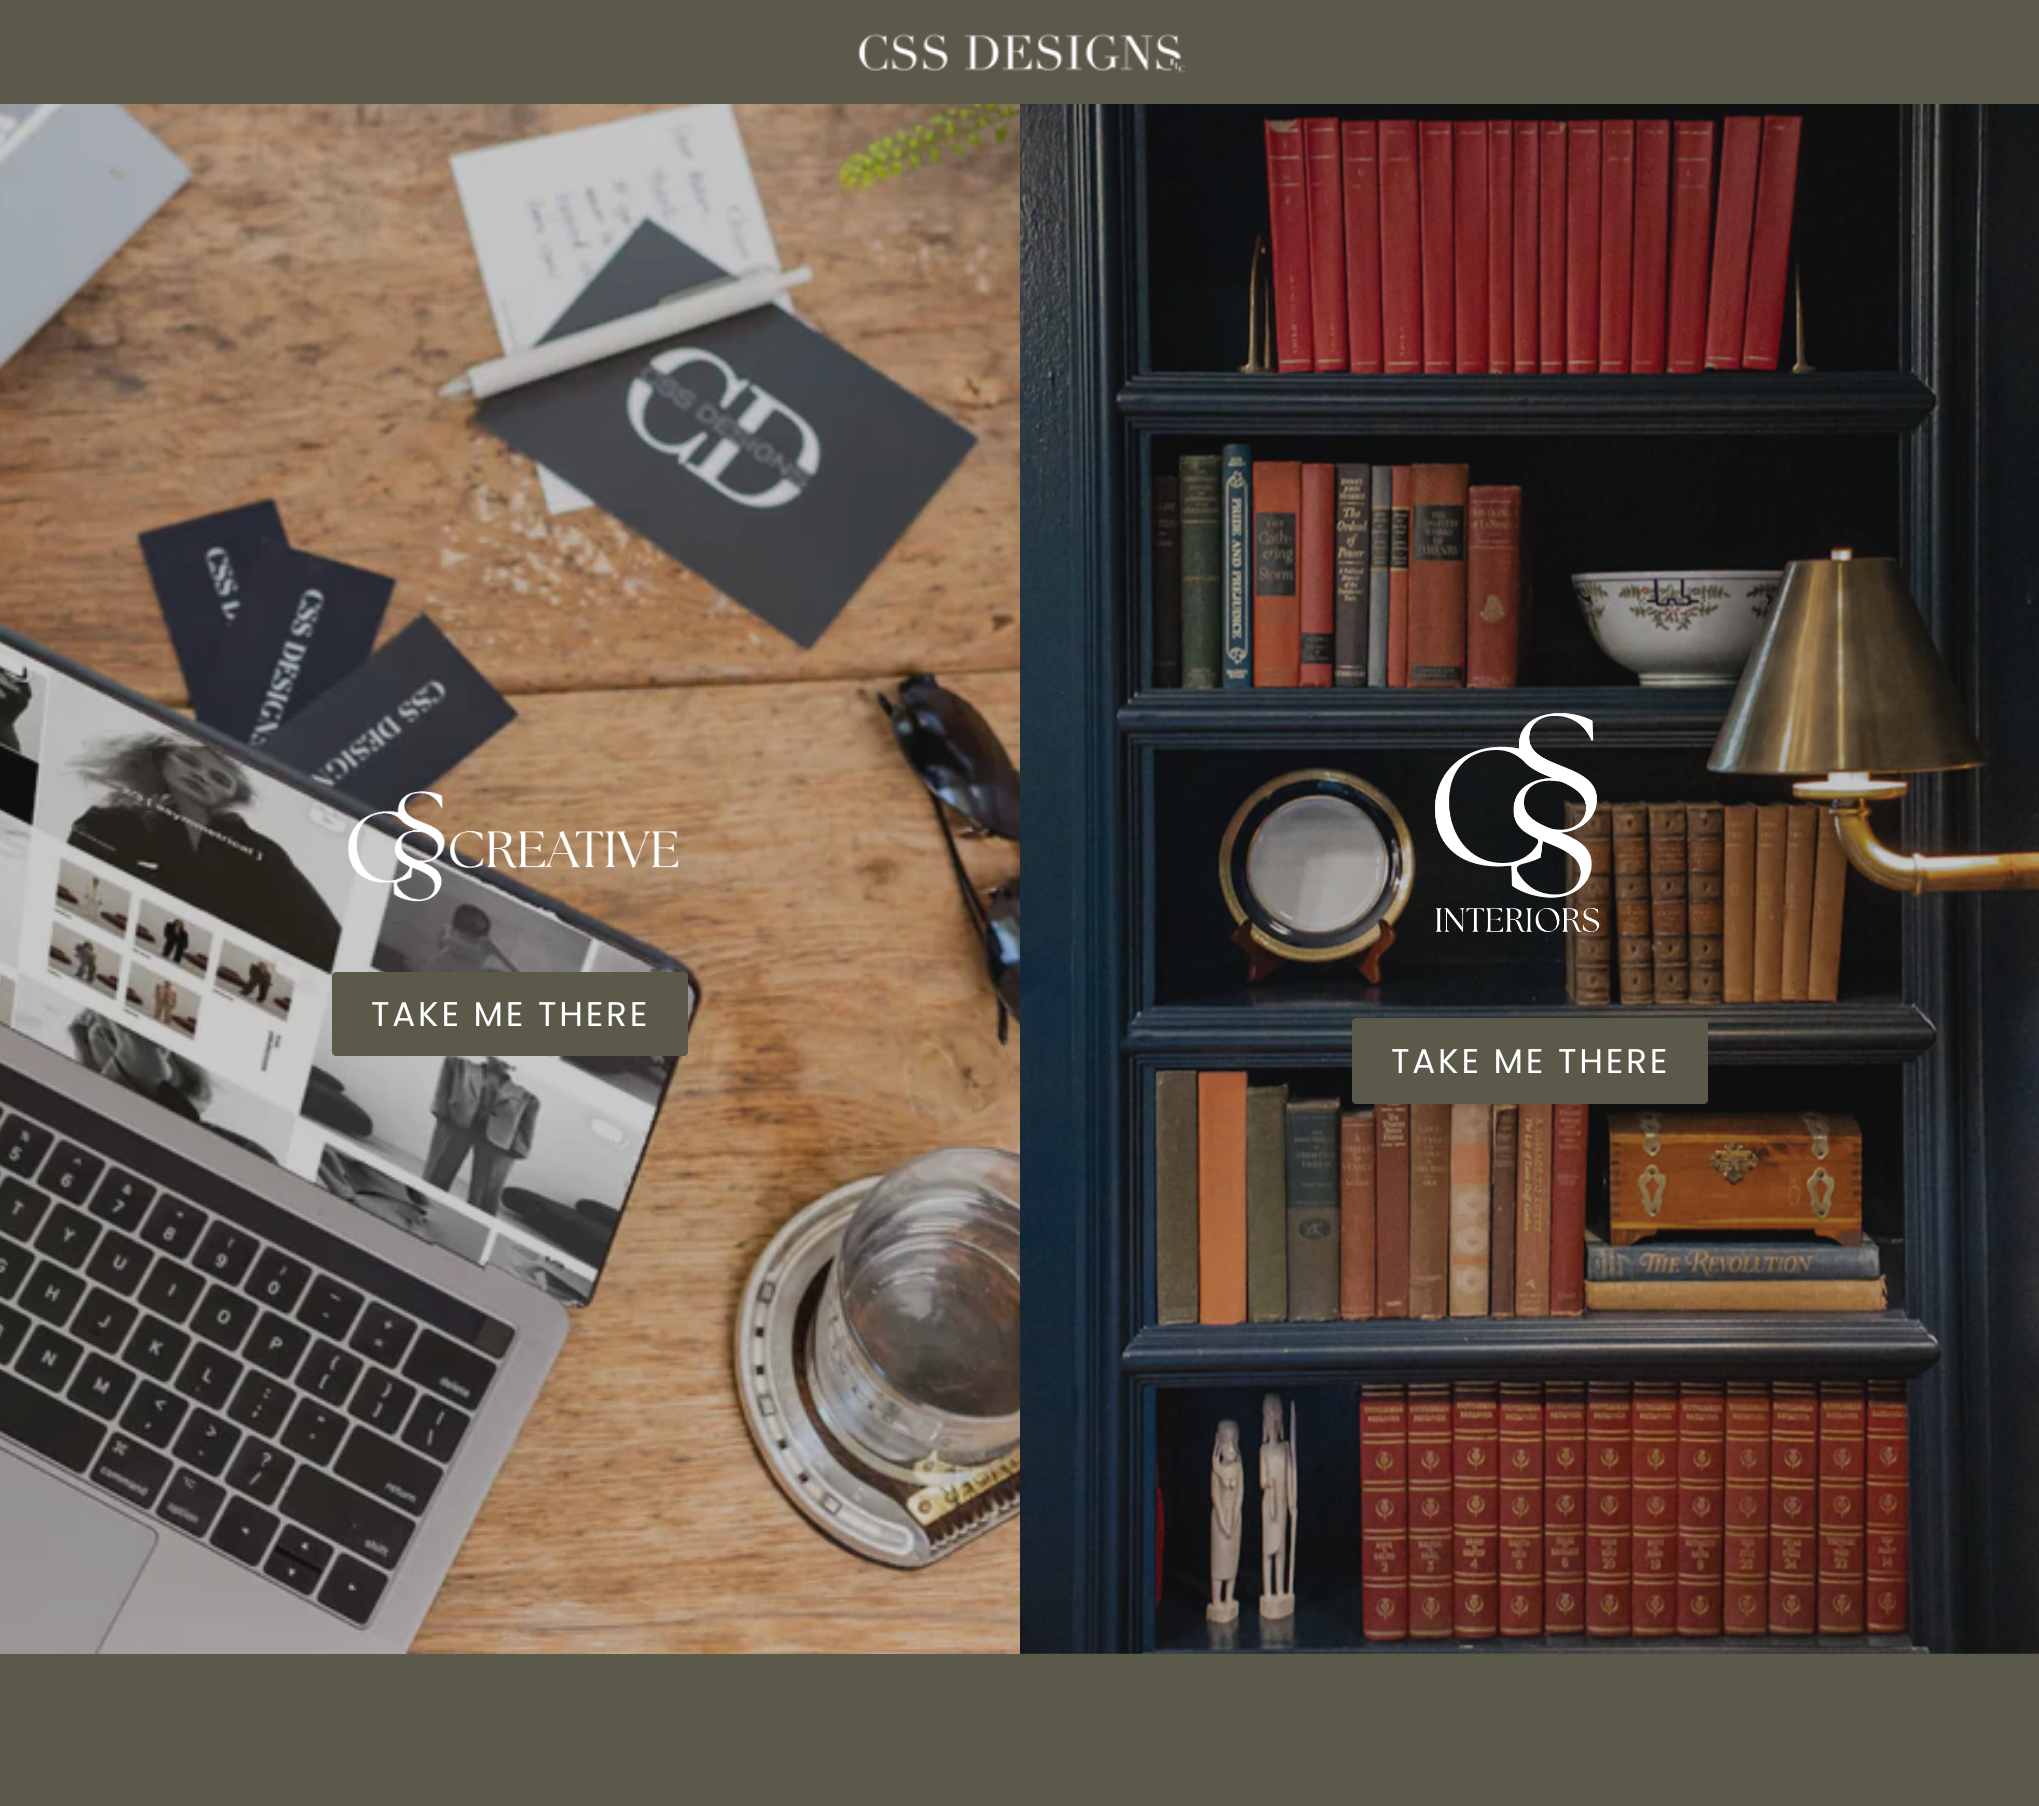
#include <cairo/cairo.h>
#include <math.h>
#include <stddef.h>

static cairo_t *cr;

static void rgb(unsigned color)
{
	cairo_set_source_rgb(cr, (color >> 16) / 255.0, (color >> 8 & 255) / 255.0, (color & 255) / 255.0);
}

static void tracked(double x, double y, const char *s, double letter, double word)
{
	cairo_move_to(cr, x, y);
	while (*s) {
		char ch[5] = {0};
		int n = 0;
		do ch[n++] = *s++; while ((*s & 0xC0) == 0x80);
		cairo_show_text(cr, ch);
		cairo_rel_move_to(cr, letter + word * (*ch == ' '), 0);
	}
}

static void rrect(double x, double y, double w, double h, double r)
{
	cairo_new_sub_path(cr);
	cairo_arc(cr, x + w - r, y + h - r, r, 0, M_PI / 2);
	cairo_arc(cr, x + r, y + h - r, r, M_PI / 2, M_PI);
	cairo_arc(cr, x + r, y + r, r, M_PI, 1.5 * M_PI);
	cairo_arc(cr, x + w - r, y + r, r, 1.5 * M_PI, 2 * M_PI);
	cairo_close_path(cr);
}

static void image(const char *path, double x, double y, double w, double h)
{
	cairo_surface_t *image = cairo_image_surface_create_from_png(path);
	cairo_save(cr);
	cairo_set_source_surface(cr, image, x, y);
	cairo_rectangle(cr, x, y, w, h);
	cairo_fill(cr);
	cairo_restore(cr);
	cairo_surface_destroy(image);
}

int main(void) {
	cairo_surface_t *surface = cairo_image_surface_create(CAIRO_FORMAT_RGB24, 2039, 1806);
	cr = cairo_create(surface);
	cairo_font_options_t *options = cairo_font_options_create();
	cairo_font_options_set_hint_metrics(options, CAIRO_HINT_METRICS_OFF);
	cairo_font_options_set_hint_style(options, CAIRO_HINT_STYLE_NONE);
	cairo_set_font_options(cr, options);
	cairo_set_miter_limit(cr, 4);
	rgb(0x5b594a);
	cairo_paint(cr);
	image("img/1.png", 857, 33, 329, 40);
	image("img/2.png", 0, 104, 1020, 1550);
	image("img/3.png", 348, 791, 331, 111);
	rgb(0x5b594a);
	rrect(332, 972, 356, 84, 4);
	cairo_fill(cr);
	image("img/4.png", 1020, 104, 1019, 1550);
	image("img/5.png", 1435, 713, 165, 219);
	rrect(1352, 1018, 356, 86, 4);
	cairo_fill(cr);
	cairo_select_font_face(cr, "Poppins", CAIRO_FONT_SLANT_NORMAL, CAIRO_FONT_WEIGHT_NORMAL);
	cairo_set_font_size(cr, 34.25);
	rgb(0xffffff);
	tracked(371, 1026, "TAKE ME THERE", 2.75, 0);
	tracked(1391, 1073, "TAKE ME THERE", 2.75, 0);
	cairo_surface_write_to_png(surface, "page.png");
	cairo_font_options_destroy(options);
	cairo_destroy(cr);
	cairo_surface_destroy(surface);
	return 0;
}
